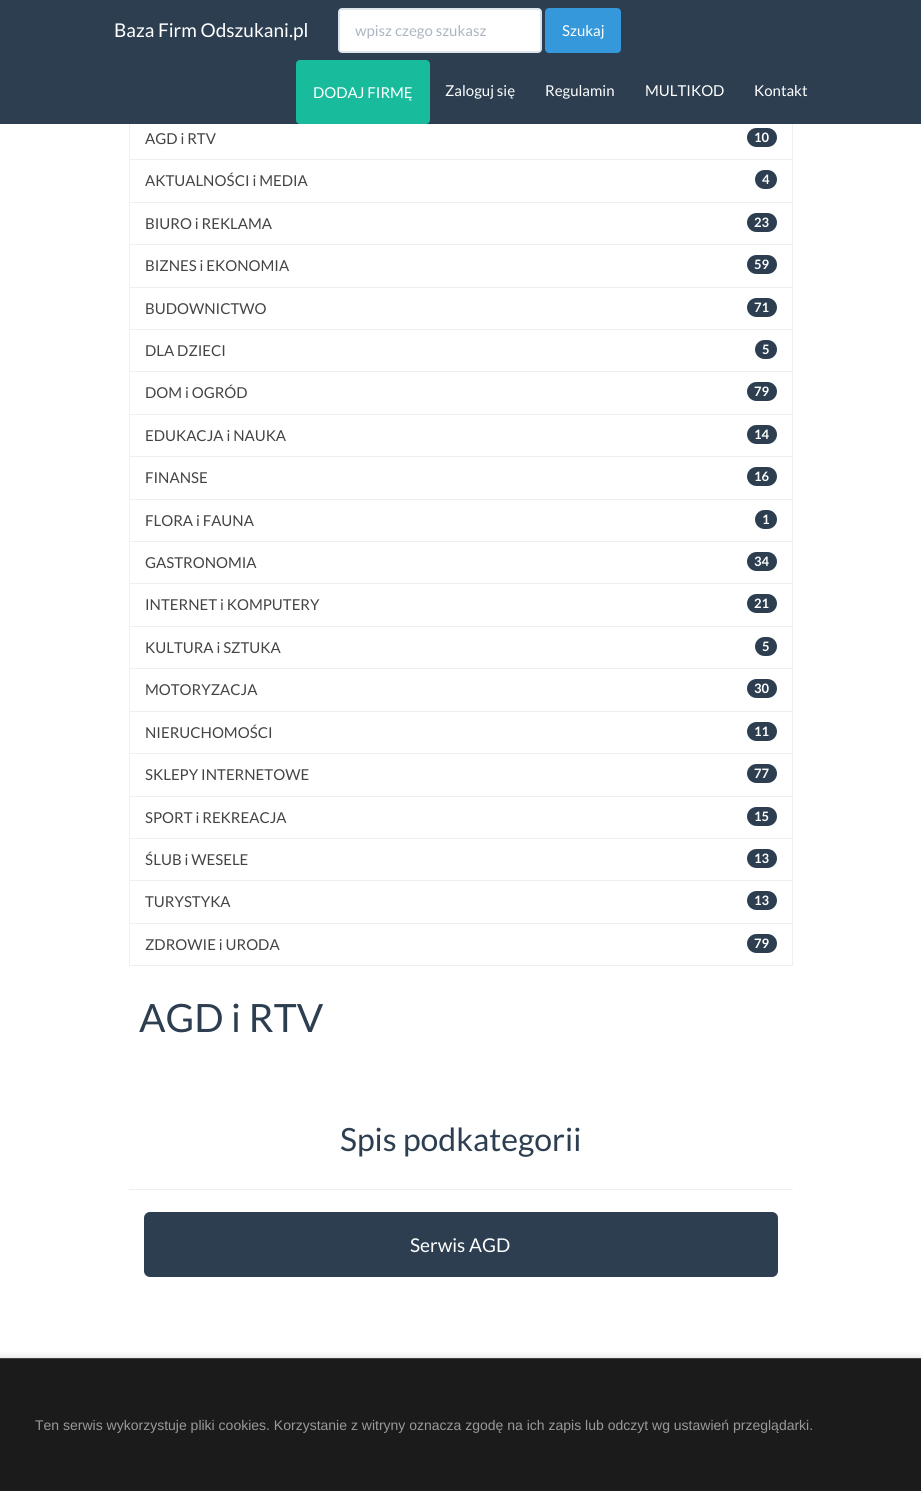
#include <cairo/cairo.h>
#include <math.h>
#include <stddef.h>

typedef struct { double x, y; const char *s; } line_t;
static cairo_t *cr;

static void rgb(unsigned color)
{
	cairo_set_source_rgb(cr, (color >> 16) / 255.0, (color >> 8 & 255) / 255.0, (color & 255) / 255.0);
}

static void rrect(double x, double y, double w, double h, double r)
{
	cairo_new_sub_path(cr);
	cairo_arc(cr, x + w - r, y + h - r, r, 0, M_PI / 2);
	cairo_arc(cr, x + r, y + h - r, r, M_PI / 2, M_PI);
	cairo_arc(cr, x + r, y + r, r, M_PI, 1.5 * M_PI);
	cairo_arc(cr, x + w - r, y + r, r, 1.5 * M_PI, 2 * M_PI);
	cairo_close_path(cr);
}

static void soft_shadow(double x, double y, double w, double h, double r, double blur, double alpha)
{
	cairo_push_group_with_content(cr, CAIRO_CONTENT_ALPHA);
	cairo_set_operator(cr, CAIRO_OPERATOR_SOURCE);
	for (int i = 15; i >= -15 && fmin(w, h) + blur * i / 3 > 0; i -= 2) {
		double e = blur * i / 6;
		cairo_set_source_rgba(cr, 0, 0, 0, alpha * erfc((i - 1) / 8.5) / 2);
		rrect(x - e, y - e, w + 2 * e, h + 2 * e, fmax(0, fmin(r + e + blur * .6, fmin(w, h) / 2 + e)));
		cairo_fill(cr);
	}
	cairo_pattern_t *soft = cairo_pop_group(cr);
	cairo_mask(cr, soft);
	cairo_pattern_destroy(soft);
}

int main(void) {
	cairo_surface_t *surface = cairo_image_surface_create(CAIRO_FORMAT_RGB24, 921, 1491);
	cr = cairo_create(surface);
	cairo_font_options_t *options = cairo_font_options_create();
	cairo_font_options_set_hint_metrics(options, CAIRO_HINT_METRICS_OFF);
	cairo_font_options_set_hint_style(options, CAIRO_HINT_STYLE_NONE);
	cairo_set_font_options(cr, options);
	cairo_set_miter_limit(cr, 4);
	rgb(0xffffff);
	cairo_paint(cr);
	cairo_rectangle(cr, 129.5, 117.5, 663, 42);
	rgb(0xecf0f1);
	cairo_set_line_width(cr, 1);
	cairo_stroke(cr);
	rgb(0x2c3e50);
	cairo_rectangle(cr, 0, 0, 921, 124);
	cairo_fill(cr);
	rgb(0xffffff);
	rrect(339, 9, 202, 43, 3);
	cairo_fill_preserve(cr);
	rgb(0xdce4ec);
	cairo_set_line_width(cr, 2);
	cairo_stroke(cr);
	rgb(0x3498db);
	rrect(546, 9, 74, 43, 3);
	cairo_fill_preserve(cr);
	cairo_stroke(cr);
	rgb(0x18bc9c);
	rrect(297, 61, 132, 62, 3);
	cairo_fill_preserve(cr);
	cairo_stroke(cr);
	rgb(0x2c3e50);
	rrect(747, 128, 30, 19, 9.5);
	cairo_fill(cr);
	cairo_rectangle(cr, 129.5, 159.5, 663, 43);
	rgb(0xecf0f1);
	cairo_set_line_width(cr, 1);
	cairo_stroke(cr);
	rgb(0x2c3e50);
	rrect(755, 170, 22, 19, 9.5);
	cairo_fill(cr);
	cairo_rectangle(cr, 129.5, 202.5, 663, 42);
	rgb(0xecf0f1);
	cairo_stroke(cr);
	rgb(0x2c3e50);
	rrect(747, 213, 30, 19, 9.5);
	cairo_fill(cr);
	cairo_rectangle(cr, 129.5, 244.5, 663, 43);
	rgb(0xecf0f1);
	cairo_stroke(cr);
	rgb(0x2c3e50);
	rrect(747, 255, 30, 19, 9.5);
	cairo_fill(cr);
	cairo_rectangle(cr, 129.5, 287.5, 663, 42);
	rgb(0xecf0f1);
	cairo_stroke(cr);
	rgb(0x2c3e50);
	rrect(747, 298, 30, 19, 9.5);
	cairo_fill(cr);
	cairo_rectangle(cr, 129.5, 329.5, 663, 42);
	rgb(0xecf0f1);
	cairo_stroke(cr);
	rgb(0x2c3e50);
	rrect(755, 340, 22, 19, 9.5);
	cairo_fill(cr);
	cairo_rectangle(cr, 129.5, 371.5, 663, 43);
	rgb(0xecf0f1);
	cairo_stroke(cr);
	rgb(0x2c3e50);
	rrect(747, 382, 30, 19, 9.5);
	cairo_fill(cr);
	cairo_rectangle(cr, 129.5, 414.5, 663, 42);
	rgb(0xecf0f1);
	cairo_stroke(cr);
	rgb(0x2c3e50);
	rrect(747, 425, 30, 19, 9.5);
	cairo_fill(cr);
	cairo_rectangle(cr, 129.5, 456.5, 663, 43);
	rgb(0xecf0f1);
	cairo_stroke(cr);
	rgb(0x2c3e50);
	rrect(747, 467, 30, 19, 9.5);
	cairo_fill(cr);
	cairo_rectangle(cr, 129.5, 499.5, 663, 42);
	rgb(0xecf0f1);
	cairo_stroke(cr);
	rgb(0x2c3e50);
	rrect(755, 510, 22, 19, 9.5);
	cairo_fill(cr);
	cairo_rectangle(cr, 129.5, 541.5, 663, 42);
	rgb(0xecf0f1);
	cairo_stroke(cr);
	rgb(0x2c3e50);
	rrect(747, 552, 30, 19, 9.5);
	cairo_fill(cr);
	cairo_rectangle(cr, 129.5, 583.5, 663, 43);
	rgb(0xecf0f1);
	cairo_stroke(cr);
	rgb(0x2c3e50);
	rrect(747, 594, 30, 19, 9.5);
	cairo_fill(cr);
	cairo_rectangle(cr, 129.5, 626.5, 663, 42);
	rgb(0xecf0f1);
	cairo_stroke(cr);
	rgb(0x2c3e50);
	rrect(755, 637, 22, 19, 9.5);
	cairo_fill(cr);
	cairo_rectangle(cr, 129.5, 668.5, 663, 43);
	rgb(0xecf0f1);
	cairo_stroke(cr);
	rgb(0x2c3e50);
	rrect(747, 679, 30, 19, 9.5);
	cairo_fill(cr);
	cairo_rectangle(cr, 129.5, 711.5, 663, 42);
	rgb(0xecf0f1);
	cairo_stroke(cr);
	rgb(0x2c3e50);
	rrect(747, 722, 30, 19, 9.5);
	cairo_fill(cr);
	cairo_rectangle(cr, 129.5, 753.5, 663, 43);
	rgb(0xecf0f1);
	cairo_stroke(cr);
	rgb(0x2c3e50);
	rrect(747, 764, 30, 19, 9.5);
	cairo_fill(cr);
	cairo_rectangle(cr, 129.5, 796.5, 663, 42);
	rgb(0xecf0f1);
	cairo_stroke(cr);
	rgb(0x2c3e50);
	rrect(747, 807, 30, 19, 9.5);
	cairo_fill(cr);
	cairo_rectangle(cr, 129.5, 838.5, 663, 42);
	rgb(0xecf0f1);
	cairo_stroke(cr);
	rgb(0x2c3e50);
	rrect(747, 849, 30, 19, 9.5);
	cairo_fill(cr);
	cairo_rectangle(cr, 129.5, 880.5, 663, 43);
	rgb(0xecf0f1);
	cairo_stroke(cr);
	rgb(0x2c3e50);
	rrect(747, 891, 30, 19, 9.5);
	cairo_fill(cr);
	cairo_rectangle(cr, 129.5, 923.5, 663, 42);
	rgb(0xecf0f1);
	cairo_stroke(cr);
	rgb(0x2c3e50);
	rrect(747, 934, 30, 19, 9.5);
	cairo_fill(cr);
	rgb(0xecf0f1);
	cairo_rectangle(cr, 129, 1189, 664, 1);
	cairo_fill(cr);
	rgb(0x2c3e50);
	rrect(145, 1213, 632, 63, 5);
	cairo_fill_preserve(cr);
	cairo_set_line_width(cr, 2);
	cairo_stroke(cr);
	rgb(0x000000);
	soft_shadow(0, 1358, 921, 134, 0, 4, 0.15);
	rgb(0x1b1b1b);
	cairo_rectangle(cr, 0, 1359, 921, 132);
	cairo_fill(cr);
	rgb(0x444444);
	cairo_rectangle(cr, 0, 1358, 921, 1);
	cairo_fill(cr);
	cairo_select_font_face(cr, "Lato", CAIRO_FONT_SLANT_NORMAL, CAIRO_FONT_WEIGHT_NORMAL);
	cairo_set_font_size(cr, 19);
	rgb(0xffffff);
	cairo_move_to(cr, 114, 37);
	cairo_show_text(cr, "Baza Firm Odszukani.pl");
	cairo_set_font_size(cr, 15);
	rgb(0xacb6c0);
	cairo_move_to(cr, 355, 36);
	cairo_show_text(cr, "wpisz czego szukasz");
	rgb(0xffffff);
	{
		static const line_t items[] = {
			{562, 36, "Szukaj"},
			{313, 98, "DODAJ FIRMĘ"},
			{445, 96, "Zaloguj się"},
			{545, 96, "Regulamin"},
			{645, 96, "MULTIKOD"},
			{754, 96, "Kontakt"},
		};
		for (size_t i = 0; i < sizeof items / sizeof *items; i++) {
			cairo_move_to(cr, items[i].x, items[i].y);
			cairo_show_text(cr, items[i].s);
		}
	}
	rgb(0x444444);
	cairo_move_to(cr, 145, 144);
	cairo_show_text(cr, "AGD i RTV");
	cairo_select_font_face(cr, "Lato", CAIRO_FONT_SLANT_NORMAL, CAIRO_FONT_WEIGHT_BOLD);
	cairo_set_font_size(cr, 13);
	rgb(0xffffff);
	cairo_move_to(cr, 754, 142);
	cairo_show_text(cr, "10");
	cairo_select_font_face(cr, "Lato", CAIRO_FONT_SLANT_NORMAL, CAIRO_FONT_WEIGHT_NORMAL);
	cairo_set_font_size(cr, 15);
	rgb(0x444444);
	cairo_move_to(cr, 145, 186);
	cairo_show_text(cr, "AKTUALNOŚCI i MEDIA");
	cairo_select_font_face(cr, "Lato", CAIRO_FONT_SLANT_NORMAL, CAIRO_FONT_WEIGHT_BOLD);
	cairo_set_font_size(cr, 13);
	rgb(0xffffff);
	cairo_move_to(cr, 762, 184);
	cairo_show_text(cr, "4");
	cairo_select_font_face(cr, "Lato", CAIRO_FONT_SLANT_NORMAL, CAIRO_FONT_WEIGHT_NORMAL);
	cairo_set_font_size(cr, 15);
	rgb(0x444444);
	cairo_move_to(cr, 145, 229);
	cairo_show_text(cr, "BIURO i REKLAMA");
	cairo_select_font_face(cr, "Lato", CAIRO_FONT_SLANT_NORMAL, CAIRO_FONT_WEIGHT_BOLD);
	cairo_set_font_size(cr, 13);
	rgb(0xffffff);
	cairo_move_to(cr, 754, 227);
	cairo_show_text(cr, "23");
	cairo_select_font_face(cr, "Lato", CAIRO_FONT_SLANT_NORMAL, CAIRO_FONT_WEIGHT_NORMAL);
	cairo_set_font_size(cr, 15);
	rgb(0x444444);
	cairo_move_to(cr, 145, 271);
	cairo_show_text(cr, "BIZNES i EKONOMIA");
	cairo_select_font_face(cr, "Lato", CAIRO_FONT_SLANT_NORMAL, CAIRO_FONT_WEIGHT_BOLD);
	cairo_set_font_size(cr, 13);
	rgb(0xffffff);
	cairo_move_to(cr, 754, 269);
	cairo_show_text(cr, "59");
	cairo_select_font_face(cr, "Lato", CAIRO_FONT_SLANT_NORMAL, CAIRO_FONT_WEIGHT_NORMAL);
	cairo_set_font_size(cr, 15);
	rgb(0x444444);
	cairo_move_to(cr, 145, 314);
	cairo_show_text(cr, "BUDOWNICTWO");
	cairo_select_font_face(cr, "Lato", CAIRO_FONT_SLANT_NORMAL, CAIRO_FONT_WEIGHT_BOLD);
	cairo_set_font_size(cr, 13);
	rgb(0xffffff);
	cairo_move_to(cr, 754, 312);
	cairo_show_text(cr, "71");
	cairo_select_font_face(cr, "Lato", CAIRO_FONT_SLANT_NORMAL, CAIRO_FONT_WEIGHT_NORMAL);
	cairo_set_font_size(cr, 15);
	rgb(0x444444);
	cairo_move_to(cr, 145, 356);
	cairo_show_text(cr, "DLA DZIECI");
	cairo_select_font_face(cr, "Lato", CAIRO_FONT_SLANT_NORMAL, CAIRO_FONT_WEIGHT_BOLD);
	cairo_set_font_size(cr, 13);
	rgb(0xffffff);
	cairo_move_to(cr, 762, 354);
	cairo_show_text(cr, "5");
	cairo_select_font_face(cr, "Lato", CAIRO_FONT_SLANT_NORMAL, CAIRO_FONT_WEIGHT_NORMAL);
	cairo_set_font_size(cr, 15);
	rgb(0x444444);
	cairo_move_to(cr, 145, 398);
	cairo_show_text(cr, "DOM i OGRÓD");
	cairo_select_font_face(cr, "Lato", CAIRO_FONT_SLANT_NORMAL, CAIRO_FONT_WEIGHT_BOLD);
	cairo_set_font_size(cr, 13);
	rgb(0xffffff);
	cairo_move_to(cr, 754, 396);
	cairo_show_text(cr, "79");
	cairo_select_font_face(cr, "Lato", CAIRO_FONT_SLANT_NORMAL, CAIRO_FONT_WEIGHT_NORMAL);
	cairo_set_font_size(cr, 15);
	rgb(0x444444);
	cairo_move_to(cr, 145, 441);
	cairo_show_text(cr, "EDUKACJA i NAUKA");
	cairo_select_font_face(cr, "Lato", CAIRO_FONT_SLANT_NORMAL, CAIRO_FONT_WEIGHT_BOLD);
	cairo_set_font_size(cr, 13);
	rgb(0xffffff);
	cairo_move_to(cr, 754, 439);
	cairo_show_text(cr, "14");
	cairo_select_font_face(cr, "Lato", CAIRO_FONT_SLANT_NORMAL, CAIRO_FONT_WEIGHT_NORMAL);
	cairo_set_font_size(cr, 15);
	rgb(0x444444);
	cairo_move_to(cr, 145, 483);
	cairo_show_text(cr, "FINANSE");
	cairo_select_font_face(cr, "Lato", CAIRO_FONT_SLANT_NORMAL, CAIRO_FONT_WEIGHT_BOLD);
	cairo_set_font_size(cr, 13);
	rgb(0xffffff);
	cairo_move_to(cr, 754, 481);
	cairo_show_text(cr, "16");
	cairo_select_font_face(cr, "Lato", CAIRO_FONT_SLANT_NORMAL, CAIRO_FONT_WEIGHT_NORMAL);
	cairo_set_font_size(cr, 15);
	rgb(0x444444);
	cairo_move_to(cr, 145, 526);
	cairo_show_text(cr, "FLORA i FAUNA");
	cairo_select_font_face(cr, "Lato", CAIRO_FONT_SLANT_NORMAL, CAIRO_FONT_WEIGHT_BOLD);
	cairo_set_font_size(cr, 13);
	rgb(0xffffff);
	cairo_move_to(cr, 762, 524);
	cairo_show_text(cr, "1");
	cairo_select_font_face(cr, "Lato", CAIRO_FONT_SLANT_NORMAL, CAIRO_FONT_WEIGHT_NORMAL);
	cairo_set_font_size(cr, 15);
	rgb(0x444444);
	cairo_move_to(cr, 145, 568);
	cairo_show_text(cr, "GASTRONOMIA");
	cairo_select_font_face(cr, "Lato", CAIRO_FONT_SLANT_NORMAL, CAIRO_FONT_WEIGHT_BOLD);
	cairo_set_font_size(cr, 13);
	rgb(0xffffff);
	cairo_move_to(cr, 754, 566);
	cairo_show_text(cr, "34");
	cairo_select_font_face(cr, "Lato", CAIRO_FONT_SLANT_NORMAL, CAIRO_FONT_WEIGHT_NORMAL);
	cairo_set_font_size(cr, 15);
	rgb(0x444444);
	cairo_move_to(cr, 145, 610);
	cairo_show_text(cr, "INTERNET i KOMPUTERY");
	cairo_select_font_face(cr, "Lato", CAIRO_FONT_SLANT_NORMAL, CAIRO_FONT_WEIGHT_BOLD);
	cairo_set_font_size(cr, 13);
	rgb(0xffffff);
	cairo_move_to(cr, 754, 608);
	cairo_show_text(cr, "21");
	cairo_select_font_face(cr, "Lato", CAIRO_FONT_SLANT_NORMAL, CAIRO_FONT_WEIGHT_NORMAL);
	cairo_set_font_size(cr, 15);
	rgb(0x444444);
	cairo_move_to(cr, 145, 653);
	cairo_show_text(cr, "KULTURA i SZTUKA");
	cairo_select_font_face(cr, "Lato", CAIRO_FONT_SLANT_NORMAL, CAIRO_FONT_WEIGHT_BOLD);
	cairo_set_font_size(cr, 13);
	rgb(0xffffff);
	cairo_move_to(cr, 762, 651);
	cairo_show_text(cr, "5");
	cairo_select_font_face(cr, "Lato", CAIRO_FONT_SLANT_NORMAL, CAIRO_FONT_WEIGHT_NORMAL);
	cairo_set_font_size(cr, 15);
	rgb(0x444444);
	cairo_move_to(cr, 145, 695);
	cairo_show_text(cr, "MOTORYZACJA");
	cairo_select_font_face(cr, "Lato", CAIRO_FONT_SLANT_NORMAL, CAIRO_FONT_WEIGHT_BOLD);
	cairo_set_font_size(cr, 13);
	rgb(0xffffff);
	cairo_move_to(cr, 754, 693);
	cairo_show_text(cr, "30");
	cairo_select_font_face(cr, "Lato", CAIRO_FONT_SLANT_NORMAL, CAIRO_FONT_WEIGHT_NORMAL);
	cairo_set_font_size(cr, 15);
	rgb(0x444444);
	cairo_move_to(cr, 145, 738);
	cairo_show_text(cr, "NIERUCHOMOŚCI");
	cairo_select_font_face(cr, "Lato", CAIRO_FONT_SLANT_NORMAL, CAIRO_FONT_WEIGHT_BOLD);
	cairo_set_font_size(cr, 13);
	rgb(0xffffff);
	cairo_move_to(cr, 754, 736);
	cairo_show_text(cr, "11");
	cairo_select_font_face(cr, "Lato", CAIRO_FONT_SLANT_NORMAL, CAIRO_FONT_WEIGHT_NORMAL);
	cairo_set_font_size(cr, 15);
	rgb(0x444444);
	cairo_move_to(cr, 145, 780);
	cairo_show_text(cr, "SKLEPY INTERNETOWE");
	cairo_select_font_face(cr, "Lato", CAIRO_FONT_SLANT_NORMAL, CAIRO_FONT_WEIGHT_BOLD);
	cairo_set_font_size(cr, 13);
	rgb(0xffffff);
	cairo_move_to(cr, 754, 778);
	cairo_show_text(cr, "77");
	cairo_select_font_face(cr, "Lato", CAIRO_FONT_SLANT_NORMAL, CAIRO_FONT_WEIGHT_NORMAL);
	cairo_set_font_size(cr, 15);
	rgb(0x444444);
	cairo_move_to(cr, 145, 823);
	cairo_show_text(cr, "SPORT i REKREACJA");
	cairo_select_font_face(cr, "Lato", CAIRO_FONT_SLANT_NORMAL, CAIRO_FONT_WEIGHT_BOLD);
	cairo_set_font_size(cr, 13);
	rgb(0xffffff);
	cairo_move_to(cr, 754, 821);
	cairo_show_text(cr, "15");
	cairo_select_font_face(cr, "Lato", CAIRO_FONT_SLANT_NORMAL, CAIRO_FONT_WEIGHT_NORMAL);
	cairo_set_font_size(cr, 15);
	rgb(0x444444);
	cairo_move_to(cr, 145, 865);
	cairo_show_text(cr, "ŚLUB i WESELE");
	cairo_select_font_face(cr, "Lato", CAIRO_FONT_SLANT_NORMAL, CAIRO_FONT_WEIGHT_BOLD);
	cairo_set_font_size(cr, 13);
	rgb(0xffffff);
	cairo_move_to(cr, 754, 863);
	cairo_show_text(cr, "13");
	cairo_select_font_face(cr, "Lato", CAIRO_FONT_SLANT_NORMAL, CAIRO_FONT_WEIGHT_NORMAL);
	cairo_set_font_size(cr, 15);
	rgb(0x444444);
	cairo_move_to(cr, 145, 907);
	cairo_show_text(cr, "TURYSTYKA");
	cairo_select_font_face(cr, "Lato", CAIRO_FONT_SLANT_NORMAL, CAIRO_FONT_WEIGHT_BOLD);
	cairo_set_font_size(cr, 13);
	rgb(0xffffff);
	cairo_move_to(cr, 754, 905);
	cairo_show_text(cr, "13");
	cairo_select_font_face(cr, "Lato", CAIRO_FONT_SLANT_NORMAL, CAIRO_FONT_WEIGHT_NORMAL);
	cairo_set_font_size(cr, 15);
	rgb(0x444444);
	cairo_move_to(cr, 145, 950);
	cairo_show_text(cr, "ZDROWIE i URODA");
	cairo_select_font_face(cr, "Lato", CAIRO_FONT_SLANT_NORMAL, CAIRO_FONT_WEIGHT_BOLD);
	cairo_set_font_size(cr, 13);
	rgb(0xffffff);
	cairo_move_to(cr, 754, 948);
	cairo_show_text(cr, "79");
	cairo_select_font_face(cr, "Lato", CAIRO_FONT_SLANT_NORMAL, CAIRO_FONT_WEIGHT_NORMAL);
	cairo_set_font_size(cr, 39);
	rgb(0x2c3e50);
	cairo_move_to(cr, 139, 1032);
	cairo_show_text(cr, "AGD i RTV");
	cairo_set_font_size(cr, 32);
	cairo_move_to(cr, 340, 1151);
	cairo_show_text(cr, "Spis podkategorii");
	cairo_set_font_size(cr, 19);
	rgb(0xffffff);
	cairo_move_to(cr, 410, 1252);
	cairo_show_text(cr, "Serwis AGD");
	cairo_select_font_face(cr, "Liberation Sans", CAIRO_FONT_SLANT_NORMAL, CAIRO_FONT_WEIGHT_NORMAL);
	cairo_set_font_size(cr, 14);
	rgb(0x999999);
	cairo_move_to(cr, 35, 1430);
	cairo_show_text(cr, "Ten serwis wykorzystuje pliki cookies. Korzystanie z witryny oznacza zgodę na ich zapis lub odczyt wg ustawień przeglądarki.");
	cairo_surface_write_to_png(surface, "page.png");
	cairo_font_options_destroy(options);
	cairo_destroy(cr);
	cairo_surface_destroy(surface);
	return 0;
}
